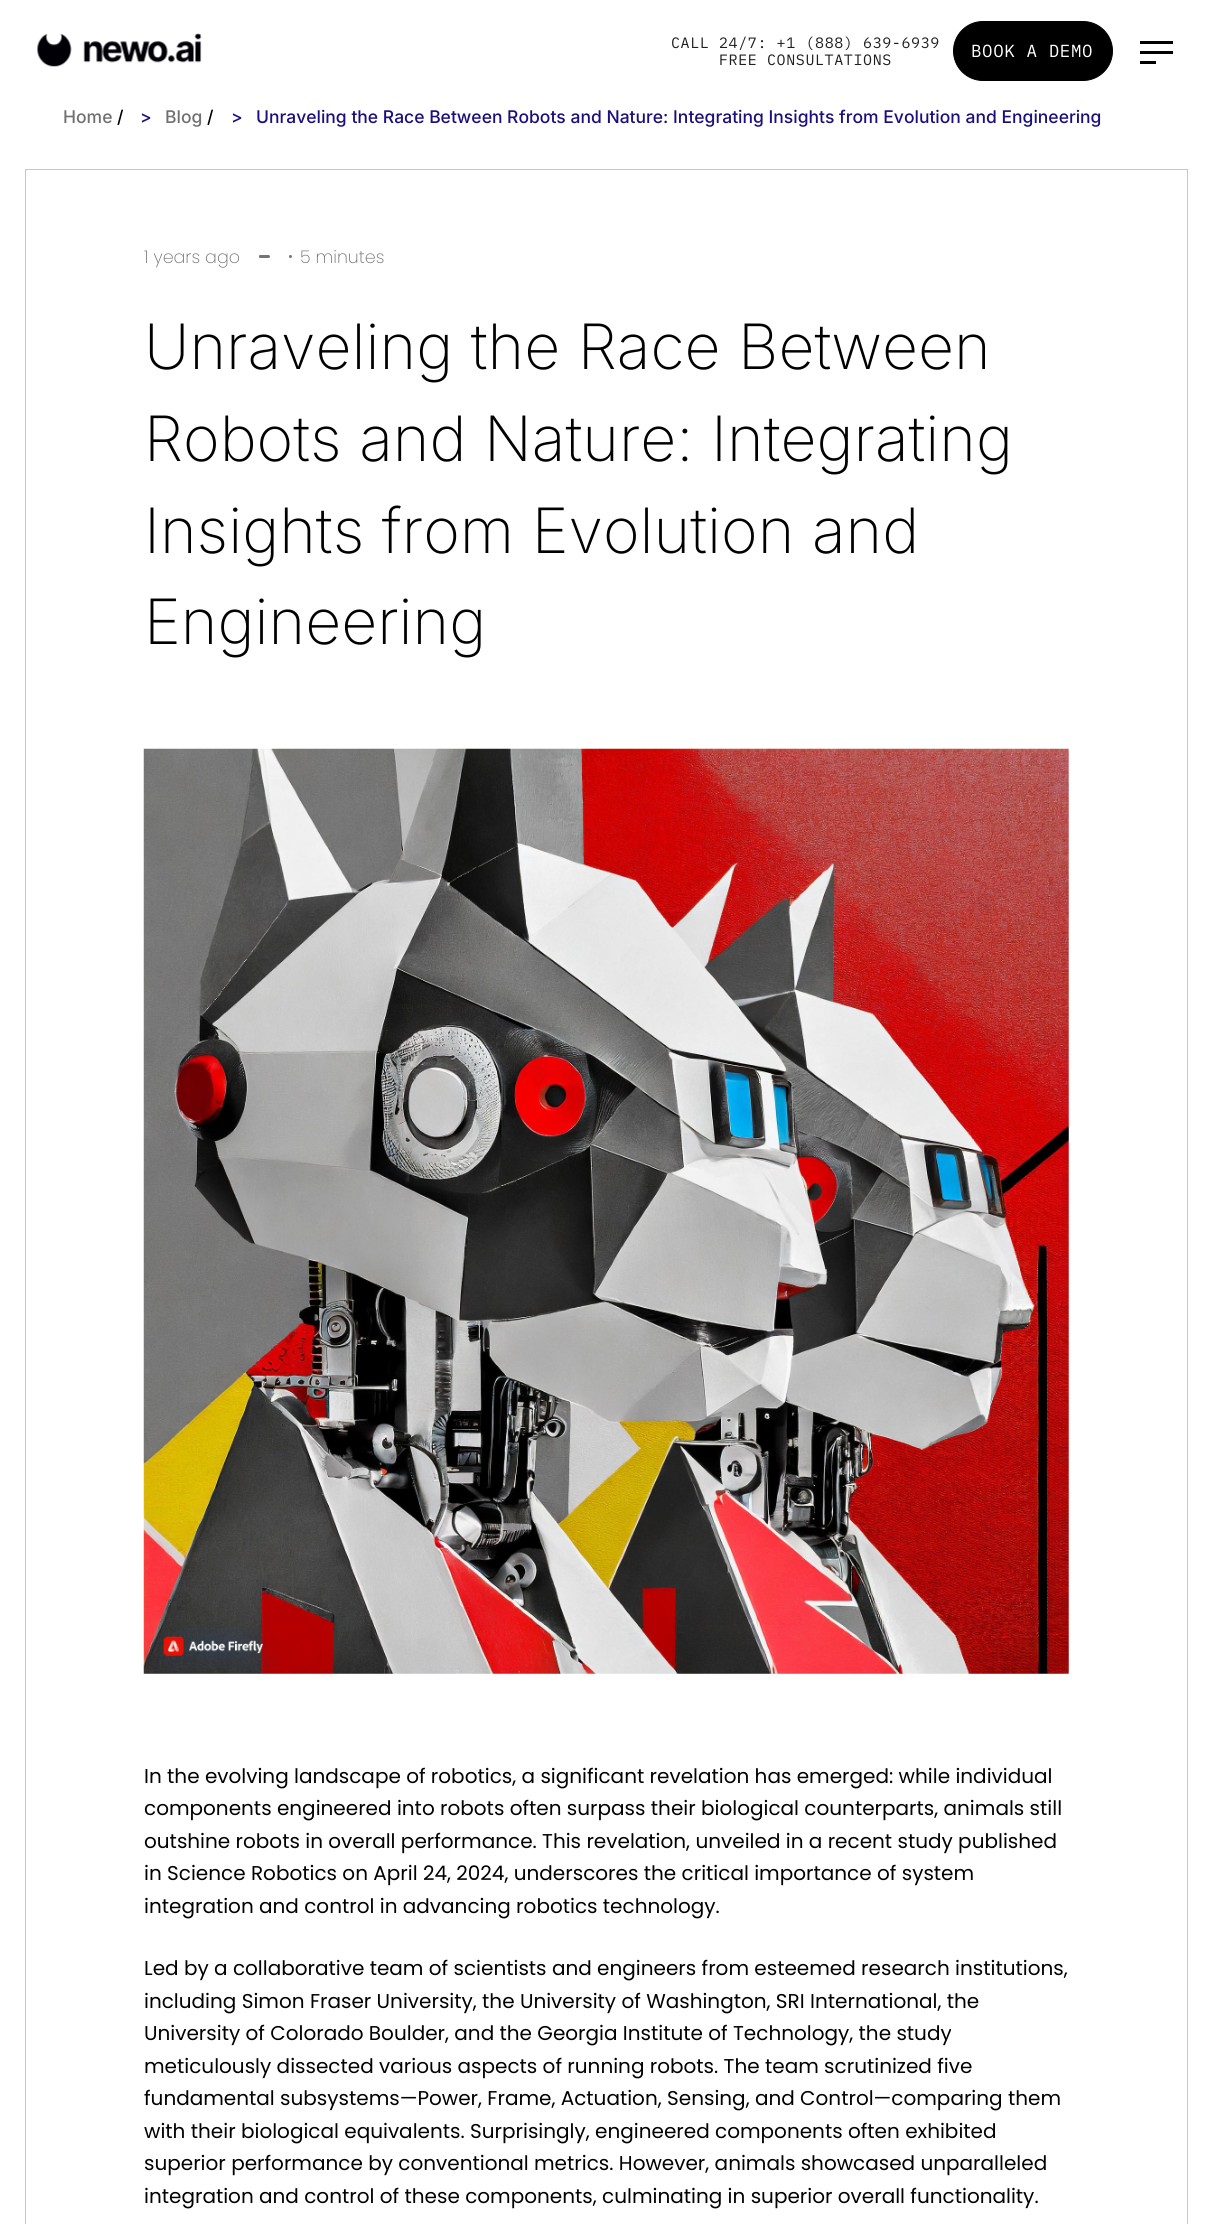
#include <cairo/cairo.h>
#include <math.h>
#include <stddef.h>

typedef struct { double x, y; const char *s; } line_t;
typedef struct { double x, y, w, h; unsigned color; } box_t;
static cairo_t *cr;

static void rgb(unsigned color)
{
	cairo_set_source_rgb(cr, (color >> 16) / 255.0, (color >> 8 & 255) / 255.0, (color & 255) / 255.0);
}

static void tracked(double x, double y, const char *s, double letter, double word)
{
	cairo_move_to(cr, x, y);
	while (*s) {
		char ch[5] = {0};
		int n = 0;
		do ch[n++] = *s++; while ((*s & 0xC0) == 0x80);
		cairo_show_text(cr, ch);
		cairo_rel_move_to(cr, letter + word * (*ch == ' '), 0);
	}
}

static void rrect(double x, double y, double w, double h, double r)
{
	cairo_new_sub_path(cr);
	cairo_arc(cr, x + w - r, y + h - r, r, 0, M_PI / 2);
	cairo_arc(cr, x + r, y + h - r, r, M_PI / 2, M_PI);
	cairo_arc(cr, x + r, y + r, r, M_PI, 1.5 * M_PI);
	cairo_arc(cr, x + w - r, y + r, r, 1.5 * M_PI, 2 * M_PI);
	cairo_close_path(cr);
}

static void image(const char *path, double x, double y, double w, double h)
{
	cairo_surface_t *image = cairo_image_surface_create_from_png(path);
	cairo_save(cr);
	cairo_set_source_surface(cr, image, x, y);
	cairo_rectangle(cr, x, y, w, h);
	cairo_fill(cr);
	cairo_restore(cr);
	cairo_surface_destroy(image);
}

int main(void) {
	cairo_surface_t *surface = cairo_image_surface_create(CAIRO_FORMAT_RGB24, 1212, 2224);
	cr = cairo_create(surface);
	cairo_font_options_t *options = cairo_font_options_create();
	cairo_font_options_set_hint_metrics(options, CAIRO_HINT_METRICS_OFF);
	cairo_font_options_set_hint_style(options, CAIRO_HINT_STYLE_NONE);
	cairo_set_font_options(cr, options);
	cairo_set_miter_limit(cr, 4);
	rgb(0xffffff);
	cairo_paint(cr);
	image("img/1.png", 37, 33, 165, 34);
	rgb(0x000000);
	rrect(953.5, 21.5, 159, 59, 29.5);
	cairo_fill_preserve(cr);
	cairo_set_line_width(cr, 1);
	cairo_stroke(cr);
	{
		static const box_t items[] = {
			{1140, 41, 33, 3, 0x000000},
			{1140, 51, 33, 3, 0x000000},
			{1140, 61, 16, 3, 0x000000},
		};
		for (size_t i = 0; i < sizeof items / sizeof *items; i++) {
			rgb(items[i].color);
			cairo_rectangle(cr, items[i].x, items[i].y, items[i].w, items[i].h);
			cairo_fill(cr);
		}
	}
	cairo_rectangle(cr, 25.5, 169.5, 1162, 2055);
	rgb(0xc7c7c7);
	cairo_stroke(cr);
	rgb(0x757575);
	rrect(259, 255, 11, 3, 1.5);
	cairo_fill(cr);
	cairo_arc(cr, 260.5, 256.5, 1.5, 0, 2 * M_PI);
	cairo_fill(cr);
	cairo_arc(cr, 290.5, 256.5, 1.5, 0, 2 * M_PI);
	cairo_fill(cr);
	image("img/2.png", 143, 748, 926, 926);
	cairo_select_font_face(cr, "IBM Plex Mono", CAIRO_FONT_SLANT_NORMAL, CAIRO_FONT_WEIGHT_NORMAL);
	cairo_set_font_size(cr, 15);
	rgb(0x202020);
	tracked(671, 48, "CALL 24/7: +1 (888) 639-6939", 0.6, 0);
	tracked(719, 65, "FREE CONSULTATIONS", 0.6, 0);
	cairo_set_font_size(cr, 17.5);
	rgb(0xffffff);
	tracked(971, 57, "BOOK A DEMO", 0.6, 0);
	cairo_select_font_face(cr, "Inter Medium", CAIRO_FONT_SLANT_NORMAL, CAIRO_FONT_WEIGHT_NORMAL);
	rgb(0x707070);
	cairo_move_to(cr, 63, 123);
	cairo_show_text(cr, "Home");
	rgb(0x000000);
	cairo_move_to(cr, 117, 123);
	cairo_show_text(cr, "/");
	rgb(0x1b0f80);
	cairo_move_to(cr, 140, 123);
	cairo_show_text(cr, ">");
	rgb(0x707070);
	cairo_move_to(cr, 165, 123);
	cairo_show_text(cr, "Blog");
	rgb(0x000000);
	cairo_move_to(cr, 207, 123);
	cairo_show_text(cr, "/");
	rgb(0x1b0f80);
	cairo_move_to(cr, 231, 123);
	cairo_show_text(cr, ">");
	cairo_move_to(cr, 256, 123);
	cairo_show_text(cr, "Unraveling the Race Between Robots and Nature: Integrating Insights from Evolution and Engineering");
	cairo_select_font_face(cr, "Poppins ExtraLight", CAIRO_FONT_SLANT_NORMAL, CAIRO_FONT_WEIGHT_NORMAL);
	rgb(0x707070);
	cairo_move_to(cr, 144, 263);
	cairo_show_text(cr, "1 years ago");
	cairo_move_to(cr, 300, 263);
	cairo_show_text(cr, "5 minutes");
	cairo_select_font_face(cr, "Inter ExtraLight", CAIRO_FONT_SLANT_NORMAL, CAIRO_FONT_WEIGHT_NORMAL);
	cairo_set_font_size(cr, 62.5);
	rgb(0x000000);
	{
		static const line_t items[] = {
			{144, 369, "Unraveling the Race Between"},
			{144, 461, "Robots and Nature: Integrating"},
			{144, 553, "Insights from Evolution and"},
			{144, 644, "Engineering"},
		};
		for (size_t i = 0; i < sizeof items / sizeof *items; i++) {
			cairo_move_to(cr, items[i].x, items[i].y);
			cairo_show_text(cr, items[i].s);
		}
	}
	cairo_select_font_face(cr, "Poppins", CAIRO_FONT_SLANT_NORMAL, CAIRO_FONT_WEIGHT_NORMAL);
	cairo_set_font_size(cr, 20);
	{
		static const line_t items[] = {
			{144, 1783, "In the evolving landscape of robotics, a significant revelation has emerged: while individual"},
			{144, 1815, "components engineered into robots often surpass their biological counterparts, animals still"},
			{144, 1848, "outshine robots in overall performance. This revelation, unveiled in a recent study published"},
			{144, 1880, "in Science Robotics on April 24, 2024, underscores the critical importance of system"},
			{144, 1913, "integration and control in advancing robotics technology."},
			{144, 1975, "Led by a collaborative team of scientists and engineers from esteemed research institutions,"},
			{144, 2008, "including Simon Fraser University, the University of Washington, SRI International, the"},
			{144, 2040, "University of Colorado Boulder, and the Georgia Institute of Technology, the study"},
			{144, 2073, "meticulously dissected various aspects of running robots. The team scrutinized five"},
			{144, 2105, "fundamental subsystems—Power, Frame, Actuation, Sensing, and Control—comparing them"},
			{144, 2138, "with their biological equivalents. Surprisingly, engineered components often exhibited"},
			{144, 2170, "superior performance by conventional metrics. However, animals showcased unparalleled"},
			{144, 2203, "integration and control of these components, culminating in superior overall functionality."},
		};
		for (size_t i = 0; i < sizeof items / sizeof *items; i++) {
			cairo_move_to(cr, items[i].x, items[i].y);
			cairo_show_text(cr, items[i].s);
		}
	}
	cairo_surface_write_to_png(surface, "page.png");
	cairo_font_options_destroy(options);
	cairo_destroy(cr);
	cairo_surface_destroy(surface);
	return 0;
}
